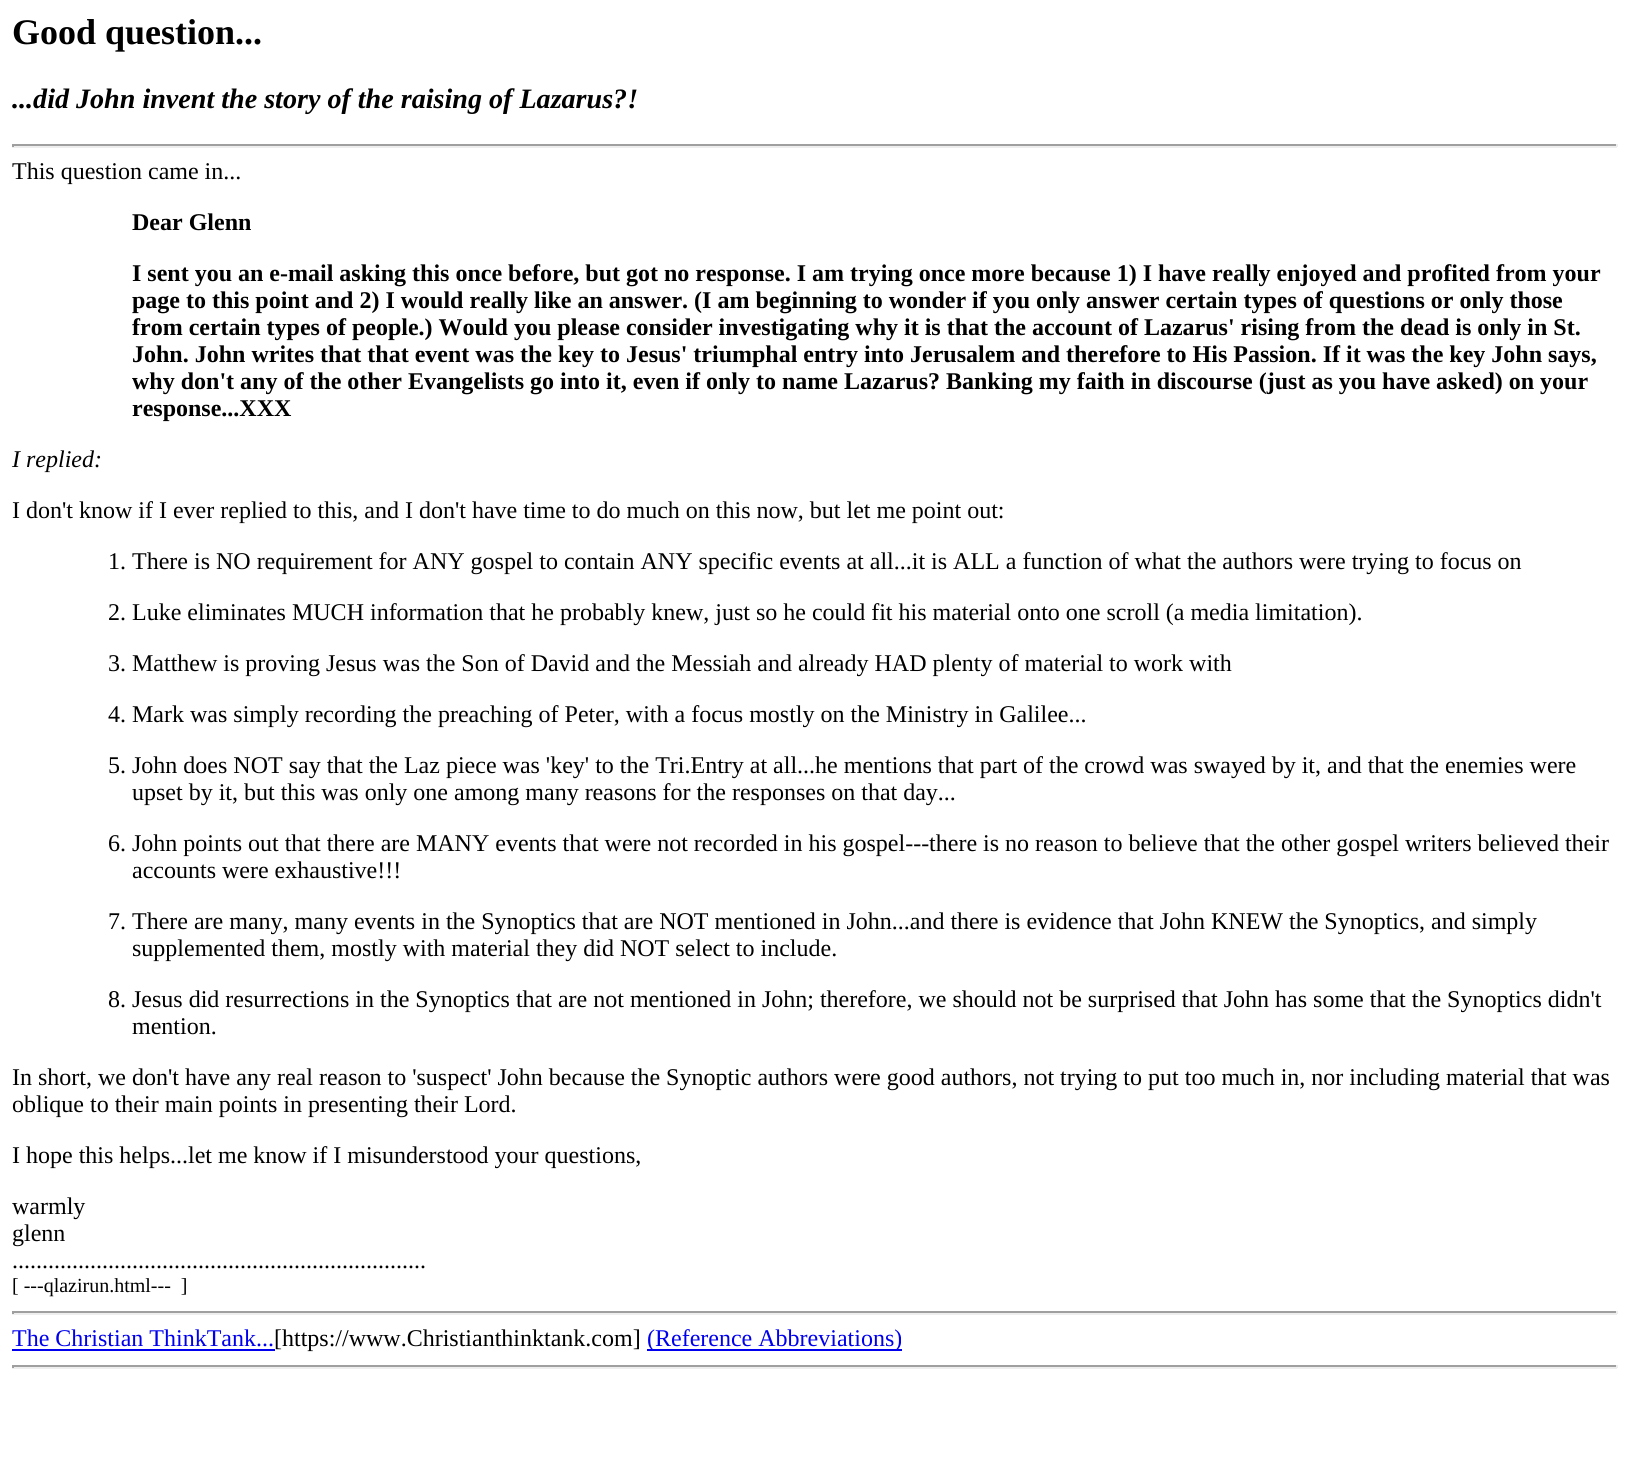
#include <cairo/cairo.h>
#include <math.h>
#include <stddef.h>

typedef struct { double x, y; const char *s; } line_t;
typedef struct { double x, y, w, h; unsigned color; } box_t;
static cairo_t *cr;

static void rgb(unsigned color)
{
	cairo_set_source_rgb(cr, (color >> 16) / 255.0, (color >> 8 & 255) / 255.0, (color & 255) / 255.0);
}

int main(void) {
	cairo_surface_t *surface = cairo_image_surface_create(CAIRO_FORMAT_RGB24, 1628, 1483);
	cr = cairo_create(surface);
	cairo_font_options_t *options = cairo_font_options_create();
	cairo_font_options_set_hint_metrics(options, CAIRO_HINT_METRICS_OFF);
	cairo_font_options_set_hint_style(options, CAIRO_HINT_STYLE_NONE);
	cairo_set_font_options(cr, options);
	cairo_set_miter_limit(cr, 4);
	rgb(0xffffff);
	cairo_paint(cr);
	{
		static const box_t items[] = {
			{12, 144, 1605, 2, 0x9f9f9f},
			{1616, 144, 2, 3, 0xeeeeee},
			{12, 146, 1605, 2, 0xeeeeee},
			{12, 144, 2, 3, 0x9f9f9f},
			{12, 1311, 1605, 2, 0x9f9f9f},
			{1616, 1311, 2, 3, 0xeeeeee},
			{12, 1313, 1605, 2, 0xeeeeee},
			{12, 1311, 2, 3, 0x9f9f9f},
			{12, 1349, 263, 2, 0x0000ee},
			{647, 1349, 255, 2, 0x0000ee},
			{12, 1365, 1605, 2, 0x9f9f9f},
			{1616, 1365, 2, 3, 0xeeeeee},
			{12, 1367, 1605, 2, 0xeeeeee},
			{12, 1365, 2, 3, 0x9f9f9f},
		};
		for (size_t i = 0; i < sizeof items / sizeof *items; i++) {
			rgb(items[i].color);
			cairo_rectangle(cr, items[i].x, items[i].y, items[i].w, items[i].h);
			cairo_fill(cr);
		}
	}
	cairo_select_font_face(cr, "Liberation Serif", CAIRO_FONT_SLANT_NORMAL, CAIRO_FONT_WEIGHT_BOLD);
	cairo_set_font_size(cr, 36);
	rgb(0x000000);
	cairo_move_to(cr, 12, 44);
	cairo_show_text(cr, "Good question...");
	cairo_select_font_face(cr, "Liberation Serif", CAIRO_FONT_SLANT_ITALIC, CAIRO_FONT_WEIGHT_BOLD);
	cairo_set_font_size(cr, 28.1);
	cairo_move_to(cr, 12, 108);
	cairo_show_text(cr, "...did John invent the story of the raising of Lazarus?!");
	cairo_select_font_face(cr, "Liberation Serif", CAIRO_FONT_SLANT_NORMAL, CAIRO_FONT_WEIGHT_NORMAL);
	cairo_set_font_size(cr, 24);
	cairo_move_to(cr, 12, 179);
	cairo_show_text(cr, "This question came in...");
	cairo_select_font_face(cr, "Liberation Serif", CAIRO_FONT_SLANT_NORMAL, CAIRO_FONT_WEIGHT_BOLD);
	{
		static const line_t items[] = {
			{132, 230, "Dear Glenn"},
			{132, 281, "I sent you an e-mail asking this once before, but got no response. I am trying once more because 1) I have really enjoyed and profited from your"},
			{132, 308, "page to this point and 2) I would really like an answer. (I am beginning to wonder if you only answer certain types of questions or only those"},
			{132, 335, "from certain types of people.) Would you please consider investigating why it is that the account of Lazarus' rising from the dead is only in St."},
			{132, 362, "John. John writes that that event was the key to Jesus' triumphal entry into Jerusalem and therefore to His Passion. If it was the key John says,"},
			{132, 389, "why don't any of the other Evangelists go into it, even if only to name Lazarus? Banking my faith in discourse (just as you have asked) on your"},
			{132, 416, "response...XXX"},
		};
		for (size_t i = 0; i < sizeof items / sizeof *items; i++) {
			cairo_move_to(cr, items[i].x, items[i].y);
			cairo_show_text(cr, items[i].s);
		}
	}
	cairo_select_font_face(cr, "Liberation Serif", CAIRO_FONT_SLANT_ITALIC, CAIRO_FONT_WEIGHT_NORMAL);
	cairo_move_to(cr, 12, 467);
	cairo_show_text(cr, "I replied:");
	cairo_select_font_face(cr, "Liberation Serif", CAIRO_FONT_SLANT_NORMAL, CAIRO_FONT_WEIGHT_NORMAL);
	{
		static const line_t items[] = {
			{12, 518, "I don't know if I ever replied to this, and I don't have time to do much on this now, but let me point out:"},
			{108, 569, "1. There is NO requirement for ANY gospel to contain ANY specific events at all...it is ALL a function of what the authors were trying to focus on"},
			{108, 620, "2. Luke eliminates MUCH information that he probably knew, just so he could fit his material onto one scroll (a media limitation)."},
			{108, 671, "3. Matthew is proving Jesus was the Son of David and the Messiah and already HAD plenty of material to work with"},
			{108, 722, "4. Mark was simply recording the preaching of Peter, with a focus mostly on the Ministry in Galilee..."},
			{108, 773, "5. John does NOT say that the Laz piece was 'key' to the Tri.Entry at all...he mentions that part of the crowd was swayed by it, and that the enemies were"},
			{132, 800, "upset by it, but this was only one among many reasons for the responses on that day..."},
			{108, 851, "6. John points out that there are MANY events that were not recorded in his gospel---there is no reason to believe that the other gospel writers believed their"},
			{132, 878, "accounts were exhaustive!!!"},
			{108, 929, "7. There are many, many events in the Synoptics that are NOT mentioned in John...and there is evidence that John KNEW the Synoptics, and simply"},
			{132, 956, "supplemented them, mostly with material they did NOT select to include."},
			{108, 1007, "8. Jesus did resurrections in the Synoptics that are not mentioned in John; therefore, we should not be surprised that John has some that the Synoptics didn't"},
			{132, 1034, "mention."},
			{12, 1085, "In short, we don't have any real reason to 'suspect' John because the Synoptic authors were good authors, not trying to put too much in, nor including material that was"},
			{12, 1112, "oblique to their main points in presenting their Lord."},
			{12, 1163, "I hope this helps...let me know if I misunderstood your questions,"},
			{12, 1214, "warmly"},
			{12, 1241, "glenn"},
			{12, 1268, "....................................................................."},
		};
		for (size_t i = 0; i < sizeof items / sizeof *items; i++) {
			cairo_move_to(cr, items[i].x, items[i].y);
			cairo_show_text(cr, items[i].s);
		}
	}
	cairo_set_font_size(cr, 20);
	cairo_move_to(cr, 12, 1292);
	cairo_show_text(cr, "[ ---qlazirun.html---  ]");
	cairo_set_font_size(cr, 24);
	rgb(0x0000ee);
	cairo_move_to(cr, 12, 1346);
	cairo_show_text(cr, "The Christian ThinkTank...");
	rgb(0x000000);
	cairo_move_to(cr, 274, 1346);
	cairo_show_text(cr, "[https://www.Christianthinktank.com]");
	rgb(0x0000ee);
	cairo_move_to(cr, 647, 1346);
	cairo_show_text(cr, "(Reference Abbreviations)");
	cairo_surface_write_to_png(surface, "page.png");
	cairo_font_options_destroy(options);
	cairo_destroy(cr);
	cairo_surface_destroy(surface);
	return 0;
}
